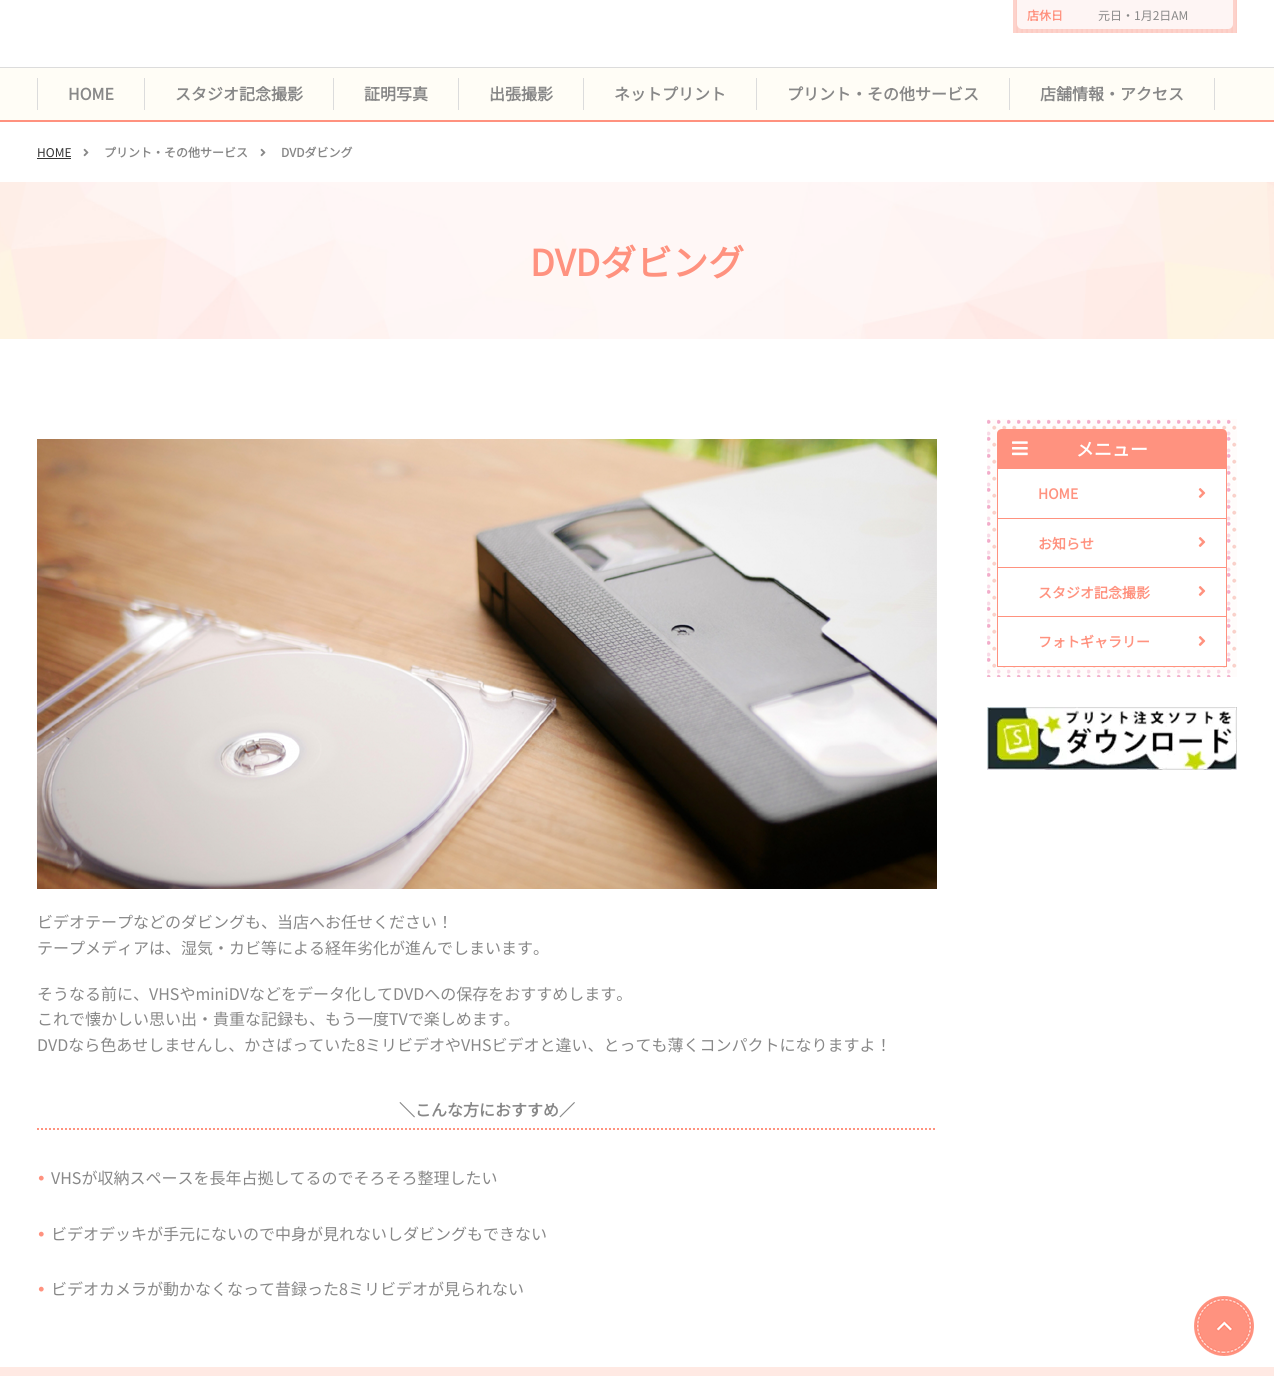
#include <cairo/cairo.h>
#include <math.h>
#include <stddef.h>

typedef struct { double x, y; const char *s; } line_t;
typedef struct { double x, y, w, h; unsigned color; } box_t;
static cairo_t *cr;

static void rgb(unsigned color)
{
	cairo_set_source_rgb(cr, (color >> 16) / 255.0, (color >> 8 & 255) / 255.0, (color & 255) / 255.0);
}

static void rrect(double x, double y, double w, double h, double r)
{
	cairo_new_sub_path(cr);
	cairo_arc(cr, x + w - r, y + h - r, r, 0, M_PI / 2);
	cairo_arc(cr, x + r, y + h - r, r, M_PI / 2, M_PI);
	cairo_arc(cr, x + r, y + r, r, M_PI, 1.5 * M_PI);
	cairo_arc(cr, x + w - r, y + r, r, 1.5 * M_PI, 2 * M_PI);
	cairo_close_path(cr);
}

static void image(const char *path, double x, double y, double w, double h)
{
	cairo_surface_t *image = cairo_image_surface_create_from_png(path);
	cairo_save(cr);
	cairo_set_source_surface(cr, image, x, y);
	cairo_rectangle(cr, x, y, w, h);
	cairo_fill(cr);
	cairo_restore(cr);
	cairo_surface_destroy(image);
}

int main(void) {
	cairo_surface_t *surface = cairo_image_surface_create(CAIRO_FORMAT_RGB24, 1274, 1376);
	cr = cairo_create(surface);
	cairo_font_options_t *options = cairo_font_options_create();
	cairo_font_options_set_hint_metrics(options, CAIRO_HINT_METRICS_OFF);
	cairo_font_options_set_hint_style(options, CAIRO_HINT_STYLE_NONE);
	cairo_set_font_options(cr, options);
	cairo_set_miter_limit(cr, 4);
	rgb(0xffffff);
	cairo_paint(cr);
	image("img/1.png", 1016, 0, 221, 33);
	rgb(0xfef5f4);
	rrect(1017, -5, 216, 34, 5);
	cairo_fill(cr);
	{
		static const box_t items[] = {
			{1013, 0, 3, 33, 0xfdd2cb},
			{0, 68, 1274, 52, 0xfffdf6},
			{0, 67, 1274, 1, 0xdcdcdc},
			{0, 120, 1274, 2, 0xff927f},
			{37, 78, 1, 32, 0xdcdcdc},
			{144, 78, 1, 32, 0xdcdcdc},
			{333, 78, 1, 32, 0xdcdcdc},
			{458, 78, 1, 32, 0xdcdcdc},
			{583, 78, 1, 32, 0xdcdcdc},
			{756, 78, 1, 32, 0xdcdcdc},
			{1214, 78, 1, 32, 0xdcdcdc},
			{1009, 78, 1, 32, 0xdcdcdc},
			{37, 158, 34, 1, 0x333333},
		};
		for (size_t i = 0; i < sizeof items / sizeof *items; i++) {
			rgb(items[i].color);
			cairo_rectangle(cr, items[i].x, items[i].y, items[i].w, items[i].h);
			cairo_fill(cr);
		}
	}
	image("img/2.png", 83, 148, 6, 9);
	image("img/2.png", 260, 148, 6, 9);
	image("img/3.png", 0, 182, 1274, 157);
	image("img/4.png", 987, 419, 250, 258);
	rgb(0xff927f);
	cairo_new_path(cr);
	cairo_move_to(cr, 1002, 429);
	cairo_line_to(cr, 1222, 429);
	cairo_curve_to(cr, 1225, 429, 1227, 431, 1227, 434);
	cairo_line_to(cr, 1227, 468);
	cairo_line_to(cr, 997, 468);
	cairo_line_to(cr, 997, 434);
	cairo_curve_to(cr, 997, 431, 999, 429, 1002, 429);
	cairo_close_path(cr);
	cairo_fill(cr);
	image("img/5.png", 1012, 441, 16, 15);
	{
		static const box_t items[] = {
			{998, 469, 228, 197, 0xffffff},
			{1226, 468, 1, 199, 0xff927f},
			{997, 666, 230, 1, 0xff927f},
			{997, 468, 1, 199, 0xff927f},
			{998, 468, 228, 1, 0xff927f},
		};
		for (size_t i = 0; i < sizeof items / sizeof *items; i++) {
			rgb(items[i].color);
			cairo_rectangle(cr, items[i].x, items[i].y, items[i].w, items[i].h);
			cairo_fill(cr);
		}
	}
	image("img/6.png", 1198, 488, 8, 10);
	cairo_rectangle(cr, 998, 518, 228, 1);
	cairo_fill(cr);
	image("img/6.png", 1198, 537, 8, 10);
	cairo_rectangle(cr, 998, 567, 228, 1);
	cairo_fill(cr);
	image("img/6.png", 1198, 586, 8, 10);
	cairo_rectangle(cr, 998, 616, 228, 1);
	cairo_fill(cr);
	image("img/6.png", 1198, 636, 8, 10);
	image("img/7.png", 987, 707, 250, 63);
	image("img/8.png", 37, 439, 900, 450);
	cairo_new_path(cr);
	cairo_move_to(cr, 37, 1129);
	cairo_line_to(cr, 937, 1129);
	cairo_set_dash(cr, (double[]){2, 2}, 2, 0);
	cairo_stroke(cr);
	image("img/9.png", 1194, 1296, 60, 60);
	rgb(0xffe9e3);
	cairo_rectangle(cr, 0, 1367, 1274, 9);
	cairo_fill(cr);
	cairo_select_font_face(cr, "Noto Sans JP", CAIRO_FONT_SLANT_NORMAL, CAIRO_FONT_WEIGHT_BOLD);
	cairo_set_font_size(cr, 12);
	rgb(0xff927f);
	cairo_move_to(cr, 1027, 20);
	cairo_show_text(cr, "店休日");
	cairo_select_font_face(cr, "Noto Sans JP Thin", CAIRO_FONT_SLANT_NORMAL, CAIRO_FONT_WEIGHT_NORMAL);
	rgb(0x888888);
	cairo_move_to(cr, 1098, 20);
	cairo_show_text(cr, "元日・1月2日AM");
	cairo_select_font_face(cr, "Noto Sans JP", CAIRO_FONT_SLANT_NORMAL, CAIRO_FONT_WEIGHT_BOLD);
	cairo_set_font_size(cr, 16);
	{
		static const line_t items[] = {
			{68, 100, "HOME"},
			{175, 100, "スタジオ記念撮影"},
			{364, 100, "証明写真"},
			{489, 100, "出張撮影"},
			{614, 100, "ネットプリント"},
			{787, 100, "プリント・その他サービス"},
			{1040, 100, "店舗情報・アクセス"},
		};
		for (size_t i = 0; i < sizeof items / sizeof *items; i++) {
			cairo_move_to(cr, items[i].x, items[i].y);
			cairo_show_text(cr, items[i].s);
		}
	}
	cairo_select_font_face(cr, "Noto Sans JP Thin", CAIRO_FONT_SLANT_NORMAL, CAIRO_FONT_WEIGHT_NORMAL);
	cairo_set_font_size(cr, 12);
	rgb(0x333333);
	cairo_move_to(cr, 37, 157);
	cairo_show_text(cr, "HOME");
	cairo_select_font_face(cr, "Noto Sans JP", CAIRO_FONT_SLANT_NORMAL, CAIRO_FONT_WEIGHT_BOLD);
	rgb(0x888888);
	cairo_move_to(cr, 104, 157);
	cairo_show_text(cr, "プリント・その他サービス");
	cairo_move_to(cr, 281, 157);
	cairo_show_text(cr, "DVDダビング");
	cairo_set_font_size(cr, 36);
	rgb(0xff927f);
	cairo_move_to(cr, 530, 276);
	cairo_show_text(cr, "DVDダビング");
	cairo_set_font_size(cr, 18);
	rgb(0xffffff);
	cairo_move_to(cr, 1076, 456);
	cairo_show_text(cr, "メニュー");
	cairo_set_font_size(cr, 14);
	rgb(0xff927f);
	{
		static const line_t items[] = {
			{1038, 499, "HOME"},
			{1038, 549, "お知らせ"},
			{1038, 598, "スタジオ記念撮影"},
			{1038, 647, "フォトギャラリー"},
		};
		for (size_t i = 0; i < sizeof items / sizeof *items; i++) {
			cairo_move_to(cr, items[i].x, items[i].y);
			cairo_show_text(cr, items[i].s);
		}
	}
	cairo_select_font_face(cr, "Noto Sans JP Thin", CAIRO_FONT_SLANT_NORMAL, CAIRO_FONT_WEIGHT_NORMAL);
	cairo_set_font_size(cr, 16);
	rgb(0x888888);
	{
		static const line_t items[] = {
			{37, 928, "ビデオテープなどのダビングも、当店へお任せください！"},
			{37, 954, "テープメディアは、湿気・カビ等による経年劣化が進んでしまいます。"},
			{37, 1000, "そうなる前に、VHSやminiDVなどをデータ化してDVDへの保存をおすすめします。"},
			{37, 1025, "これで懐かしい思い出・貴重な記録も、もう一度TVで楽しめます。"},
			{37, 1051, "DVDなら色あせしませんし、かさばっていた8ミリビデオやVHSビデオと違い、とっても薄くコンパクトになりますよ！"},
		};
		for (size_t i = 0; i < sizeof items / sizeof *items; i++) {
			cairo_move_to(cr, items[i].x, items[i].y);
			cairo_show_text(cr, items[i].s);
		}
	}
	cairo_select_font_face(cr, "Noto Sans JP", CAIRO_FONT_SLANT_NORMAL, CAIRO_FONT_WEIGHT_BOLD);
	cairo_move_to(cr, 399, 1116);
	cairo_show_text(cr, "＼こんな方におすすめ／");
	cairo_set_font_size(cr, 20);
	rgb(0xff927f);
	cairo_move_to(cr, 31, 1186);
	cairo_show_text(cr, "・");
	cairo_select_font_face(cr, "Noto Sans JP Thin", CAIRO_FONT_SLANT_NORMAL, CAIRO_FONT_WEIGHT_NORMAL);
	cairo_set_font_size(cr, 16);
	rgb(0x888888);
	cairo_move_to(cr, 51, 1184);
	cairo_show_text(cr, "VHSが収納スペースを長年占拠してるのでそろそろ整理したい");
	cairo_select_font_face(cr, "Noto Sans JP", CAIRO_FONT_SLANT_NORMAL, CAIRO_FONT_WEIGHT_BOLD);
	cairo_set_font_size(cr, 20);
	rgb(0xff927f);
	cairo_move_to(cr, 31, 1242);
	cairo_show_text(cr, "・");
	cairo_select_font_face(cr, "Noto Sans JP Thin", CAIRO_FONT_SLANT_NORMAL, CAIRO_FONT_WEIGHT_NORMAL);
	cairo_set_font_size(cr, 16);
	rgb(0x888888);
	cairo_move_to(cr, 51, 1240);
	cairo_show_text(cr, "ビデオデッキが手元にないので中身が見れないしダビングもできない");
	cairo_select_font_face(cr, "Noto Sans JP", CAIRO_FONT_SLANT_NORMAL, CAIRO_FONT_WEIGHT_BOLD);
	cairo_set_font_size(cr, 20);
	rgb(0xff927f);
	cairo_move_to(cr, 31, 1297);
	cairo_show_text(cr, "・");
	cairo_select_font_face(cr, "Noto Sans JP Thin", CAIRO_FONT_SLANT_NORMAL, CAIRO_FONT_WEIGHT_NORMAL);
	cairo_set_font_size(cr, 16);
	rgb(0x888888);
	cairo_move_to(cr, 51, 1295);
	cairo_show_text(cr, "ビデオカメラが動かなくなって昔録った8ミリビデオが見られない");
	cairo_surface_write_to_png(surface, "page.png");
	cairo_font_options_destroy(options);
	cairo_destroy(cr);
	cairo_surface_destroy(surface);
	return 0;
}
